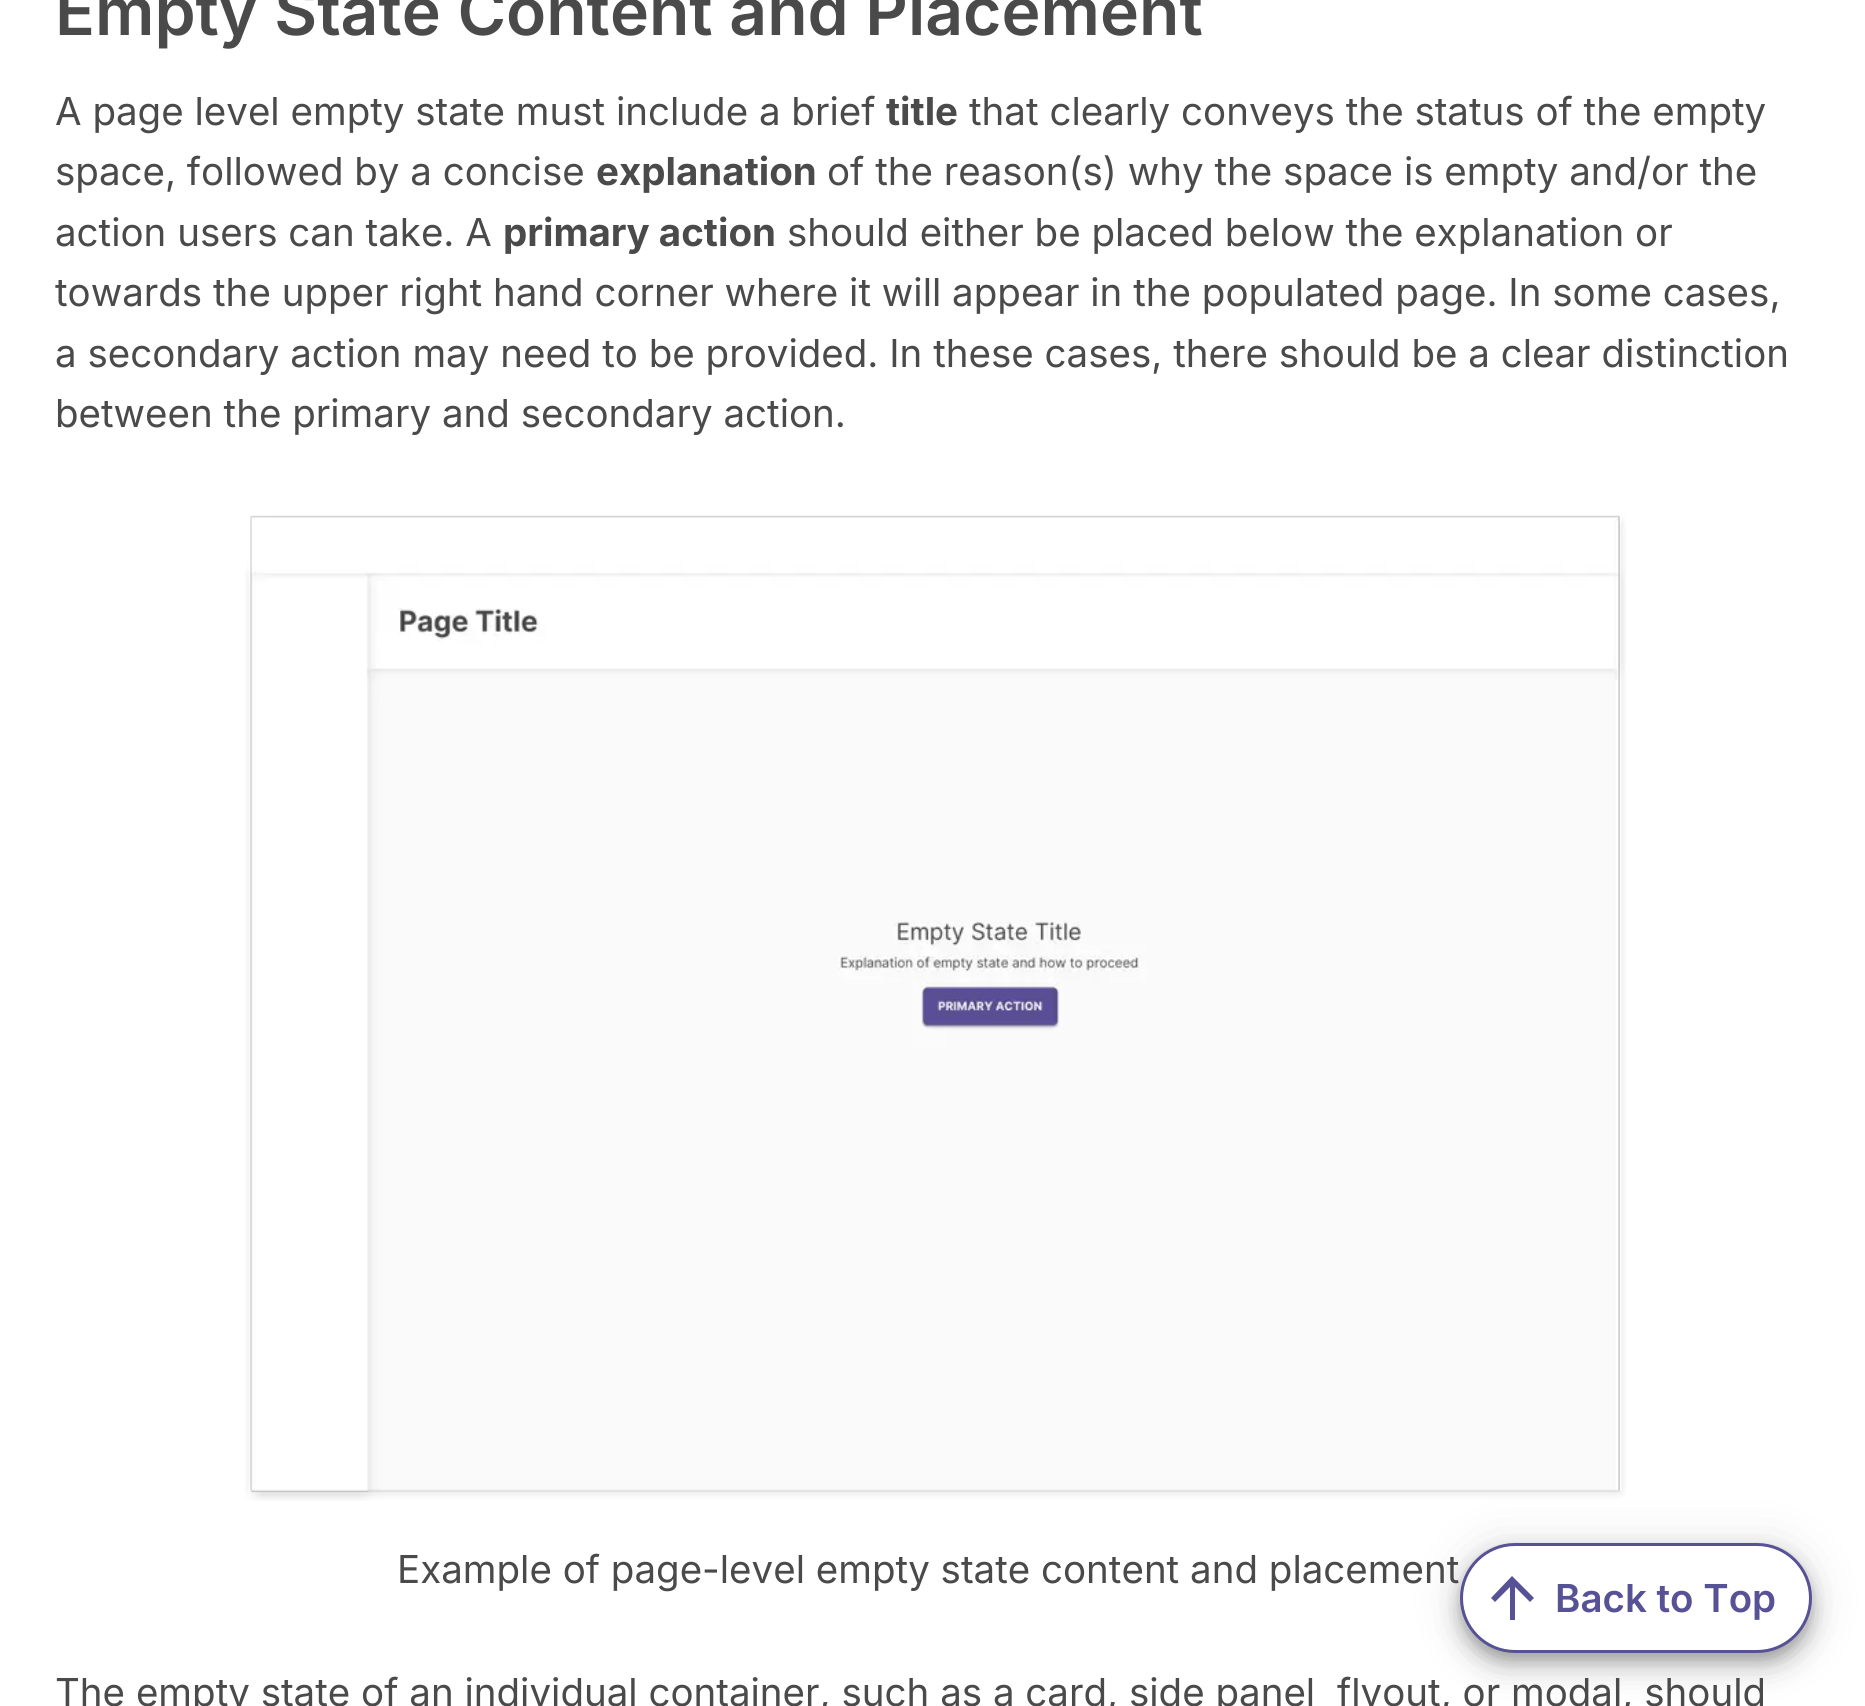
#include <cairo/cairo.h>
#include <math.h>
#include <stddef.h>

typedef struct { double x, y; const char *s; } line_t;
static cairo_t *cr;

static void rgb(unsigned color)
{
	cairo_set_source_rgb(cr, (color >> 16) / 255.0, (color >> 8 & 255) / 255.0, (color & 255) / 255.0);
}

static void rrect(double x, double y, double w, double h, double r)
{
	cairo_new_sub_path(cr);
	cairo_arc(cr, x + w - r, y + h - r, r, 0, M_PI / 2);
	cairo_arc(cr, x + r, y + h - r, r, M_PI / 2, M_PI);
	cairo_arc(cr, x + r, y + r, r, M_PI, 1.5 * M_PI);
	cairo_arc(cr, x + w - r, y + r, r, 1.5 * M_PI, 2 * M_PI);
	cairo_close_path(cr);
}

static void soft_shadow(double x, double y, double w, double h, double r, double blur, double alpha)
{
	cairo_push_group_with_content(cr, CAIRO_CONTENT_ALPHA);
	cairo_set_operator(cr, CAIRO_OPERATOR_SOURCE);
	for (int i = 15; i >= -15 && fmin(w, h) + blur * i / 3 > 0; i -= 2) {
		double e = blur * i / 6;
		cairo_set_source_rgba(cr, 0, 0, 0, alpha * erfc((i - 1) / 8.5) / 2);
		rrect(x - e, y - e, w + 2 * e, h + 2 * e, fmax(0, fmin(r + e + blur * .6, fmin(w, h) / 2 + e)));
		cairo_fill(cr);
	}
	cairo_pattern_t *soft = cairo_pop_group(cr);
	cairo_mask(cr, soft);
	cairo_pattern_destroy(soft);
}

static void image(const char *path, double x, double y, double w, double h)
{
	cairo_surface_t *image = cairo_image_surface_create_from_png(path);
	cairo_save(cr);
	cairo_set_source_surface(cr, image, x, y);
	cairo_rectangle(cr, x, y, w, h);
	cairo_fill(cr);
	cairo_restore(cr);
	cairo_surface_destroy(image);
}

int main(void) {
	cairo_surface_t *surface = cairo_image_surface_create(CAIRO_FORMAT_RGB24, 1865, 1706);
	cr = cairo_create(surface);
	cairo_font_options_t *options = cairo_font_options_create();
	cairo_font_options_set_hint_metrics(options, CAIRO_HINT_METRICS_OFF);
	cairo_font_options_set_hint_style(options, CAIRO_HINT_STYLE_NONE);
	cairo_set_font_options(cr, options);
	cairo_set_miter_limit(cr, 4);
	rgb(0xffffff);
	cairo_paint(cr);
	image("img/1.png", 245, 515, 1381, 986);
	rgb(0x000000);
	soft_shadow(1460, 1551, 352, 110, 55, 7, 0.2);
	soft_shadow(1460, 1546, 352, 110, 55, 25, 0.12);
	soft_shadow(1460, 1559, 352, 110, 55, 14, 0.14);
	rgb(0xffffff);
	rrect(1461.5, 1544.5, 349, 107, 53.5);
	cairo_fill_preserve(cr);
	rgb(0x575195);
	cairo_set_line_width(cr, 3);
	cairo_stroke(cr);
	cairo_new_path(cr);
	cairo_move_to(cr, 1515, 1620);
	cairo_line_to(cr, 1510, 1620);
	cairo_line_to(cr, 1510, 1587);
	cairo_line_to(cr, 1495, 1602);
	cairo_line_to(cr, 1491, 1598);
	cairo_line_to(cr, 1512, 1576);
	cairo_line_to(cr, 1534, 1598);
	cairo_line_to(cr, 1530, 1602);
	cairo_line_to(cr, 1515, 1587);
	cairo_close_path(cr);
	cairo_fill(cr);
	cairo_select_font_face(cr, "Inter SemiBold", CAIRO_FONT_SLANT_NORMAL, CAIRO_FONT_WEIGHT_NORMAL);
	cairo_set_font_size(cr, 66);
	rgb(0x4a4a4a);
	cairo_move_to(cr, 55, 35);
	cairo_show_text(cr, "Empty State Content and Placement");
	cairo_select_font_face(cr, "Inter", CAIRO_FONT_SLANT_NORMAL, CAIRO_FONT_WEIGHT_NORMAL);
	cairo_set_font_size(cr, 38.5);
	cairo_move_to(cr, 55, 125);
	cairo_show_text(cr, "A page level empty state must include a brief");
	cairo_select_font_face(cr, "Inter", CAIRO_FONT_SLANT_NORMAL, CAIRO_FONT_WEIGHT_BOLD);
	cairo_move_to(cr, 886, 125);
	cairo_show_text(cr, "title");
	cairo_select_font_face(cr, "Inter", CAIRO_FONT_SLANT_NORMAL, CAIRO_FONT_WEIGHT_NORMAL);
	cairo_move_to(cr, 969, 125);
	cairo_show_text(cr, "that clearly conveys the status of the empty");
	cairo_move_to(cr, 55, 185);
	cairo_show_text(cr, "space, followed by a concise");
	cairo_select_font_face(cr, "Inter", CAIRO_FONT_SLANT_NORMAL, CAIRO_FONT_WEIGHT_BOLD);
	cairo_move_to(cr, 596, 185);
	cairo_show_text(cr, "explanation");
	cairo_select_font_face(cr, "Inter", CAIRO_FONT_SLANT_NORMAL, CAIRO_FONT_WEIGHT_NORMAL);
	cairo_move_to(cr, 827, 185);
	cairo_show_text(cr, "of the reason(s) why the space is empty and/or the");
	cairo_move_to(cr, 55, 246);
	cairo_show_text(cr, "action users can take. A");
	cairo_select_font_face(cr, "Inter", CAIRO_FONT_SLANT_NORMAL, CAIRO_FONT_WEIGHT_BOLD);
	cairo_move_to(cr, 503, 246);
	cairo_show_text(cr, "primary action");
	cairo_select_font_face(cr, "Inter", CAIRO_FONT_SLANT_NORMAL, CAIRO_FONT_WEIGHT_NORMAL);
	{
		static const line_t items[] = {
			{787, 246, "should either be placed below the explanation or"},
			{55, 306, "towards the upper right hand corner where it will appear in the populated page. In some cases,"},
			{55, 367, "a secondary action may need to be provided. In these cases, there should be a clear distinction"},
			{55, 427, "between the primary and secondary action."},
			{397, 1583, "Example of page-level empty state content and placement"},
			{55, 1706, "The empty state of an individual container, such as a card, side panel"},
			{1337, 1706, "flyout, or modal, should"},
		};
		for (size_t i = 0; i < sizeof items / sizeof *items; i++) {
			cairo_move_to(cr, items[i].x, items[i].y);
			cairo_show_text(cr, items[i].s);
		}
	}
	cairo_select_font_face(cr, "Inter SemiBold", CAIRO_FONT_SLANT_NORMAL, CAIRO_FONT_WEIGHT_NORMAL);
	rgb(0x575195);
	cairo_move_to(cr, 1555, 1612);
	cairo_show_text(cr, "Back to Top");
	cairo_surface_write_to_png(surface, "page.png");
	cairo_font_options_destroy(options);
	cairo_destroy(cr);
	cairo_surface_destroy(surface);
	return 0;
}
